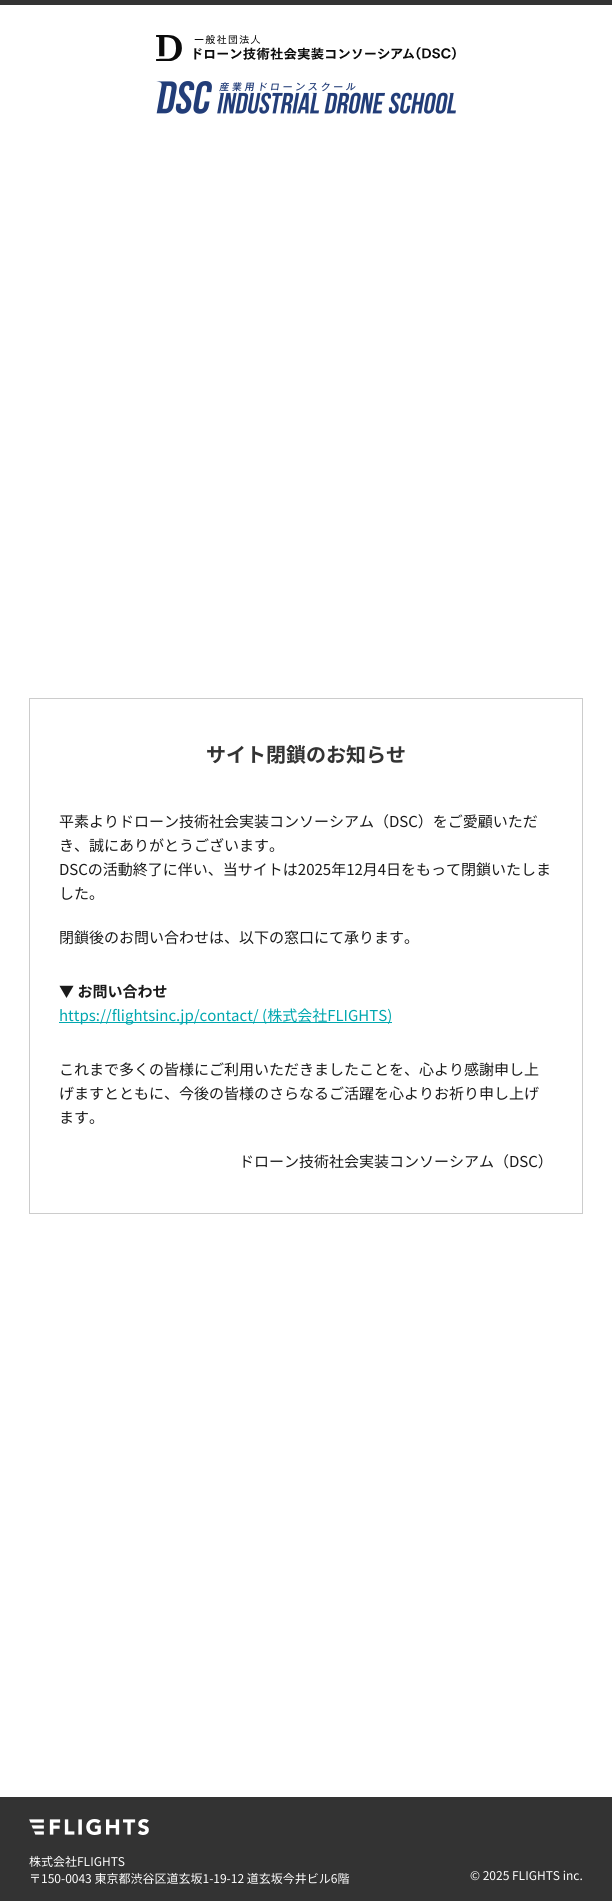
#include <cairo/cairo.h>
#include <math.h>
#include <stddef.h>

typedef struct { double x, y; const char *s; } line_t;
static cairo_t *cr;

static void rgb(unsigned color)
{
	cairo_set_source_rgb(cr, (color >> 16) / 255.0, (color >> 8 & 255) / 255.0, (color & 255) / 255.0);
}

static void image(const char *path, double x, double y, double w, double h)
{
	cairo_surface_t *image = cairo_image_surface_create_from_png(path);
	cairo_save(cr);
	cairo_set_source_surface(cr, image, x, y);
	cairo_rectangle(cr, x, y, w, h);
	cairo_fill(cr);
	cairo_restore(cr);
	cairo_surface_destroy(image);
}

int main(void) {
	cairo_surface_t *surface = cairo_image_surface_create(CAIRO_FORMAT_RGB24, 612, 1901);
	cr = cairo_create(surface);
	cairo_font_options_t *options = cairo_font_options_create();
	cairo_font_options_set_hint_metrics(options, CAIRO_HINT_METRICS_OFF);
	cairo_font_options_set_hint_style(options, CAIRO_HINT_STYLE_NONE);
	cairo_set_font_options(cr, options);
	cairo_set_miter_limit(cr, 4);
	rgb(0xffffff);
	cairo_paint(cr);
	rgb(0x333333);
	cairo_rectangle(cr, 0, 0, 612, 5);
	cairo_fill(cr);
	image("img/1.png", 156, 35, 300, 26);
	image("img/2.png", 156, 81, 300, 33);
	cairo_rectangle(cr, 29.5, 698.5, 553, 515);
	rgb(0xcccccc);
	cairo_set_line_width(cr, 1);
	cairo_stroke(cr);
	rgb(0x00a7af);
	cairo_rectangle(cr, 59, 1022, 333, 1);
	cairo_fill(cr);
	rgb(0x333333);
	cairo_rectangle(cr, 0, 1797, 612, 104);
	cairo_fill(cr);
	image("img/3.png", 29, 1819, 120, 16);
	cairo_select_font_face(cr, "Noto Sans JP", CAIRO_FONT_SLANT_NORMAL, CAIRO_FONT_WEIGHT_BOLD);
	cairo_set_font_size(cr, 20);
	cairo_move_to(cr, 206, 762);
	cairo_show_text(cr, "サイト閉鎖のお知らせ");
	cairo_select_font_face(cr, "Noto Sans JP", CAIRO_FONT_SLANT_NORMAL, CAIRO_FONT_WEIGHT_NORMAL);
	cairo_set_font_size(cr, 15);
	rgb(0x1a1a1a);
	{
		static const line_t items[] = {
			{59, 827, "平素よりドローン技術社会実装コンソーシアム（DSC）をご愛顧いただ"},
			{59, 851, "き、誠にありがとうございます。"},
			{59, 875, "DSCの活動終了に伴い、当サイトは2025年12月4日をもって閉鎖いたしま"},
			{59, 899, "した。"},
			{59, 943, "閉鎖後のお問い合わせは、以下の窓口にて承ります。"},
		};
		for (size_t i = 0; i < sizeof items / sizeof *items; i++) {
			cairo_move_to(cr, items[i].x, items[i].y);
			cairo_show_text(cr, items[i].s);
		}
	}
	cairo_select_font_face(cr, "Noto Sans JP", CAIRO_FONT_SLANT_NORMAL, CAIRO_FONT_WEIGHT_BOLD);
	cairo_move_to(cr, 59, 997);
	cairo_show_text(cr, "▼ お問い合わせ");
	cairo_select_font_face(cr, "Noto Sans JP", CAIRO_FONT_SLANT_NORMAL, CAIRO_FONT_WEIGHT_NORMAL);
	rgb(0x00a7af);
	cairo_move_to(cr, 59, 1021);
	cairo_show_text(cr, "https://flightsinc.jp/contact/ (株式会社FLIGHTS)");
	rgb(0x1a1a1a);
	{
		static const line_t items[] = {
			{59, 1075, "これまで多くの皆様にご利用いただきましたことを、心より感謝申し上"},
			{59, 1099, "げますとともに、今後の皆様のさらなるご活躍を心よりお祈り申し上げ"},
			{59, 1123, "ます。"},
			{239, 1167, "ドローン技術社会実装コンソーシアム（DSC）"},
		};
		for (size_t i = 0; i < sizeof items / sizeof *items; i++) {
			cairo_move_to(cr, items[i].x, items[i].y);
			cairo_show_text(cr, items[i].s);
		}
	}
	cairo_set_font_size(cr, 12);
	rgb(0xffffff);
	{
		static const line_t items[] = {
			{29, 1866, "株式会社FLIGHTS"},
			{29, 1883, "〒150-0043 東京都渋谷区道玄坂1-19-12 道玄坂今井ビル6階"},
			{470, 1880, "© 2025 FLIGHTS inc."},
		};
		for (size_t i = 0; i < sizeof items / sizeof *items; i++) {
			cairo_move_to(cr, items[i].x, items[i].y);
			cairo_show_text(cr, items[i].s);
		}
	}
	cairo_surface_write_to_png(surface, "page.png");
	cairo_font_options_destroy(options);
	cairo_destroy(cr);
	cairo_surface_destroy(surface);
	return 0;
}
